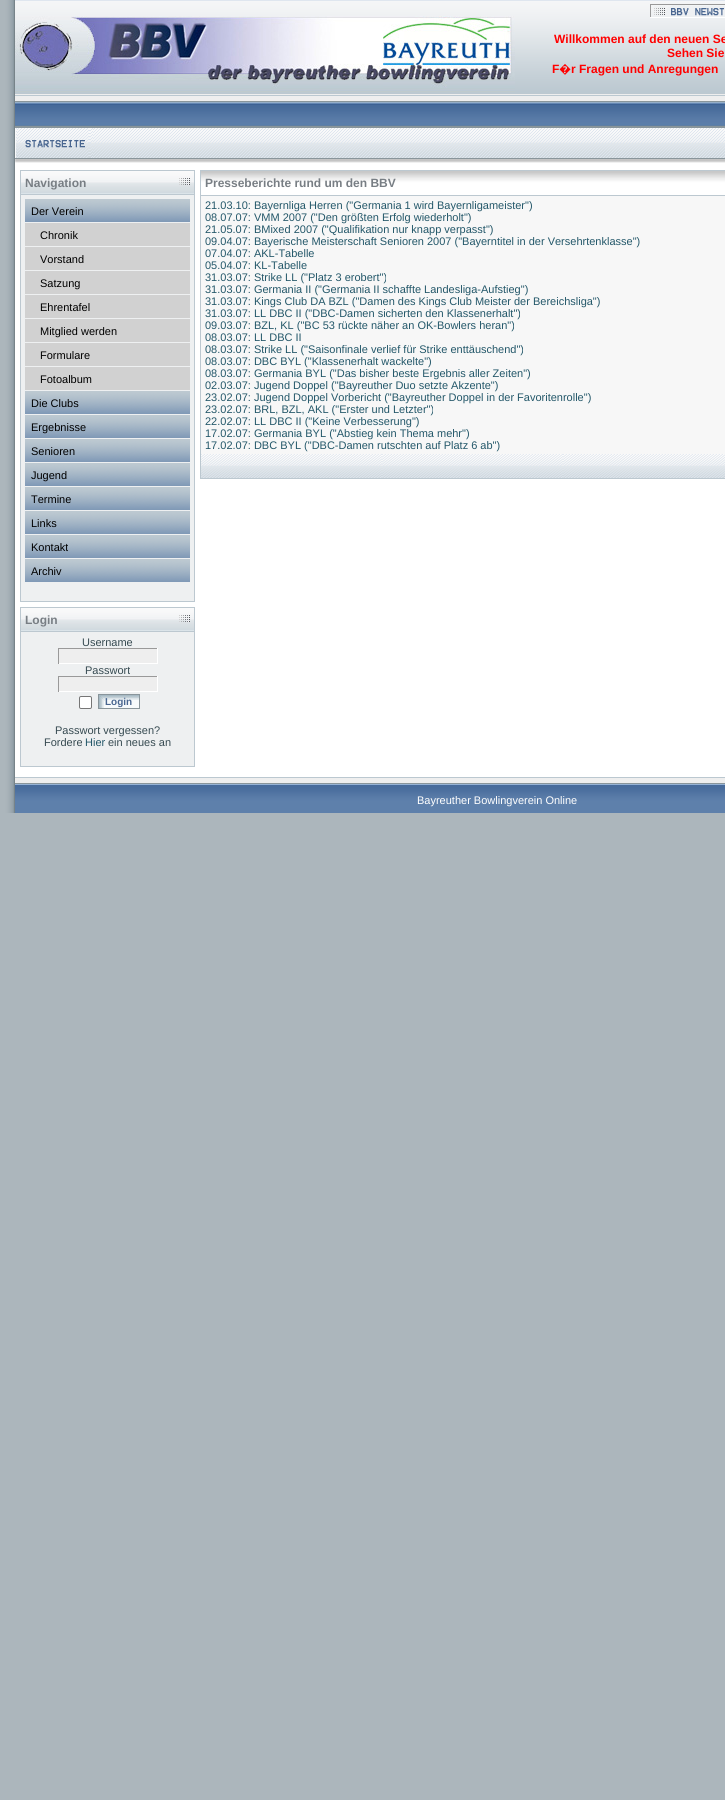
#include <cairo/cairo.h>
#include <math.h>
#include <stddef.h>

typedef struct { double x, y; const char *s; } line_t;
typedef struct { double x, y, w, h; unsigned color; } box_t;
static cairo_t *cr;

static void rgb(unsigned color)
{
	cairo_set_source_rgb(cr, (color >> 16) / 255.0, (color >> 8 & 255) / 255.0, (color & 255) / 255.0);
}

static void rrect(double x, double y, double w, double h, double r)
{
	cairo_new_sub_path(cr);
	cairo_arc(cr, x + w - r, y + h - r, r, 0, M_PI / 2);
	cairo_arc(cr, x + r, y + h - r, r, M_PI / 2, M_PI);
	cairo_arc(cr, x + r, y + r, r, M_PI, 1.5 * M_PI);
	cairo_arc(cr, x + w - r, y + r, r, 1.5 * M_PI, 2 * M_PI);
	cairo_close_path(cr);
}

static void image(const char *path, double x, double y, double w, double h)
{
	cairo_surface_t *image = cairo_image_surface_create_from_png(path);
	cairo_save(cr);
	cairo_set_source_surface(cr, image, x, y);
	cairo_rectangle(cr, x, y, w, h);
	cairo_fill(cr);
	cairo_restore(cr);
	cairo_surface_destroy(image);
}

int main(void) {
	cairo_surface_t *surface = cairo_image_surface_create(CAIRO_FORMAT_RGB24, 725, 1800);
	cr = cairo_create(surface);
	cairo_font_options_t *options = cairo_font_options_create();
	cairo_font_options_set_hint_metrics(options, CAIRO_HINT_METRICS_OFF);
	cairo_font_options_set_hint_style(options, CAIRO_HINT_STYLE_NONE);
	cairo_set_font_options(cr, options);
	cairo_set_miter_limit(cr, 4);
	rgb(0xacb6bc);
	cairo_paint(cr);
	rgb(0xffffff);
	cairo_rectangle(cr, 15, 163, 710, 614);
	cairo_fill(cr);
	image("img/1.png", 0, 0, 15, 813);
	image("img/2.png", 15, 0, 500, 126);
	image("img/3.png", 15, 16, 500, 76);
	image("img/4.png", 515, 0, 210, 126);
	image("img/5.png", 650, 4, 75, 14);
	image("img/6.png", 15, 126, 78, 37);
	image("img/7.png", 93, 126, 632, 37);
	cairo_rectangle(cr, 20.5, 170.5, 174, 431);
	rgb(0xbcc8d0);
	cairo_set_line_width(cr, 1);
	cairo_stroke(cr);
	image("img/8.png", 21, 171, 173, 24);
	image("img/9.png", 179, 178, 11, 7);
	rgb(0xeef0f1);
	cairo_rectangle(cr, 21, 195, 173, 406);
	cairo_fill(cr);
	image("img/10.png", 25, 199, 165, 23);
	{
		static const box_t items[] = {
			{25, 223, 165, 23, 0xd1d1d1},
			{25, 247, 165, 23, 0xd1d1d1},
			{25, 271, 165, 23, 0xd1d1d1},
			{25, 295, 165, 23, 0xd1d1d1},
			{25, 319, 165, 23, 0xd1d1d1},
			{25, 343, 165, 23, 0xd1d1d1},
			{25, 367, 165, 23, 0xd1d1d1},
		};
		for (size_t i = 0; i < sizeof items / sizeof *items; i++) {
			rgb(items[i].color);
			cairo_rectangle(cr, items[i].x, items[i].y, items[i].w, items[i].h);
			cairo_fill(cr);
		}
	}
	image("img/10.png", 25, 391, 165, 23);
	image("img/10.png", 25, 415, 165, 23);
	image("img/10.png", 25, 439, 165, 23);
	image("img/10.png", 25, 463, 165, 23);
	image("img/10.png", 25, 487, 165, 23);
	image("img/10.png", 25, 511, 165, 23);
	image("img/10.png", 25, 535, 165, 23);
	image("img/10.png", 25, 559, 165, 23);
	cairo_rectangle(cr, 20.5, 607.5, 174, 159);
	rgb(0xbcc8d0);
	cairo_stroke(cr);
	image("img/8.png", 21, 608, 173, 24);
	image("img/9.png", 179, 615, 11, 7);
	{
		static const box_t items[] = {
			{21, 632, 173, 134, 0xeef0f1},
			{59, 649, 98, 14, 0xeeeeee},
			{58, 648, 100, 1, 0x999999},
			{157, 648, 1, 16, 0xffffff},
			{58, 663, 100, 1, 0xffffff},
			{58, 648, 1, 16, 0x999999},
			{59, 677, 98, 14, 0xeeeeee},
			{58, 676, 100, 1, 0x999999},
			{157, 676, 1, 16, 0xffffff},
			{58, 691, 100, 1, 0xffffff},
			{58, 676, 1, 16, 0x999999},
		};
		for (size_t i = 0; i < sizeof items / sizeof *items; i++) {
			rgb(items[i].color);
			cairo_rectangle(cr, items[i].x, items[i].y, items[i].w, items[i].h);
			cairo_fill(cr);
		}
	}
	rgb(0xffffff);
	rrect(79.5, 696.5, 12, 12, 1.5);
	cairo_fill_preserve(cr);
	rgb(0x767676);
	cairo_stroke(cr);
	image("img/11.png", 99, 695, 40, 13);
	cairo_rectangle(cr, 98.5, 694.5, 41, 14);
	rgb(0x89959b);
	cairo_stroke(cr);
	cairo_rectangle(cr, 200.5, 170.5, 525, 25);
	rgb(0xbcc8d0);
	cairo_stroke(cr);
	image("img/12.png", 201, 171, 524, 24);
	{
		static const box_t items[] = {
			{200, 478, 525, 1, 0xbcc8d0},
			{200, 196, 1, 283, 0xbcc8d0},
			{201, 196, 524, 258, 0xf7f7f7},
		};
		for (size_t i = 0; i < sizeof items / sizeof *items; i++) {
			rgb(items[i].color);
			cairo_rectangle(cr, items[i].x, items[i].y, items[i].w, items[i].h);
			cairo_fill(cr);
		}
	}
	image("img/13.png", 201, 454, 524, 24);
	image("img/14.png", 15, 777, 312, 36);
	image("img/15.png", 327, 777, 341, 36);
	image("img/16.png", 668, 777, 57, 36);
	cairo_select_font_face(cr, "Liberation Sans", CAIRO_FONT_SLANT_NORMAL, CAIRO_FONT_WEIGHT_BOLD);
	cairo_set_font_size(cr, 12);
	rgb(0xff0000);
	{
		static const line_t items[] = {
			{554, 43, "Willkommen auf den neuen Se"},
			{667, 57, "Sehen Sie"},
			{552, 73, "F"},
		};
		for (size_t i = 0; i < sizeof items / sizeof *items; i++) {
			cairo_move_to(cr, items[i].x, items[i].y);
			cairo_show_text(cr, items[i].s);
		}
	}
	cairo_select_font_face(cr, "Noto Sans", CAIRO_FONT_SLANT_NORMAL, CAIRO_FONT_WEIGHT_BOLD);
	cairo_move_to(cr, 559, 73);
	cairo_show_text(cr, "�");
	cairo_select_font_face(cr, "Liberation Sans", CAIRO_FONT_SLANT_NORMAL, CAIRO_FONT_WEIGHT_BOLD);
	cairo_move_to(cr, 571, 73);
	cairo_show_text(cr, "r Fragen und Anregungen");
	rgb(0x787e84);
	cairo_move_to(cr, 25, 187);
	cairo_show_text(cr, "Navigation");
	cairo_select_font_face(cr, "Liberation Sans", CAIRO_FONT_SLANT_NORMAL, CAIRO_FONT_WEIGHT_NORMAL);
	cairo_set_font_size(cr, 11);
	rgb(0x000000);
	{
		static const line_t items[] = {
			{31, 215, "Der Verein"},
			{40, 239, "Chronik"},
			{40, 263, "Vorstand"},
			{40, 287, "Satzung"},
			{40, 311, "Ehrentafel"},
			{40, 335, "Mitglied werden"},
			{40, 359, "Formulare"},
			{40, 383, "Fotoalbum"},
			{31, 407, "Die Clubs"},
			{31, 431, "Ergebnisse"},
			{31, 455, "Senioren"},
			{31, 479, "Jugend"},
			{31, 503, "Termine"},
			{31, 527, "Links"},
			{31, 551, "Kontakt"},
			{31, 575, "Archiv"},
		};
		for (size_t i = 0; i < sizeof items / sizeof *items; i++) {
			cairo_move_to(cr, items[i].x, items[i].y);
			cairo_show_text(cr, items[i].s);
		}
	}
	cairo_select_font_face(cr, "Liberation Sans", CAIRO_FONT_SLANT_NORMAL, CAIRO_FONT_WEIGHT_BOLD);
	cairo_set_font_size(cr, 12);
	rgb(0x787e84);
	cairo_move_to(cr, 25, 624);
	cairo_show_text(cr, "Login");
	cairo_select_font_face(cr, "Liberation Sans", CAIRO_FONT_SLANT_NORMAL, CAIRO_FONT_WEIGHT_NORMAL);
	cairo_set_font_size(cr, 11);
	rgb(0x364a51);
	cairo_move_to(cr, 82, 646);
	cairo_show_text(cr, "Username");
	cairo_move_to(cr, 85, 674);
	cairo_show_text(cr, "Passwort");
	cairo_select_font_face(cr, "Liberation Sans", CAIRO_FONT_SLANT_NORMAL, CAIRO_FONT_WEIGHT_BOLD);
	cairo_set_font_size(cr, 10);
	rgb(0x496690);
	cairo_move_to(cr, 105, 705);
	cairo_show_text(cr, "Login");
	cairo_select_font_face(cr, "Liberation Sans", CAIRO_FONT_SLANT_NORMAL, CAIRO_FONT_WEIGHT_NORMAL);
	cairo_set_font_size(cr, 11);
	rgb(0x364a51);
	cairo_move_to(cr, 55, 734);
	cairo_show_text(cr, "Passwort vergessen?");
	cairo_move_to(cr, 44, 746);
	cairo_show_text(cr, "Fordere");
	rgb(0x235769);
	cairo_move_to(cr, 85, 746);
	cairo_show_text(cr, "Hier");
	rgb(0x364a51);
	cairo_move_to(cr, 108, 746);
	cairo_show_text(cr, "ein neues an");
	cairo_select_font_face(cr, "Liberation Sans", CAIRO_FONT_SLANT_NORMAL, CAIRO_FONT_WEIGHT_BOLD);
	cairo_set_font_size(cr, 12);
	rgb(0x787e84);
	cairo_move_to(cr, 205, 187);
	cairo_show_text(cr, "Presseberichte rund um den BBV");
	cairo_select_font_face(cr, "Liberation Sans", CAIRO_FONT_SLANT_NORMAL, CAIRO_FONT_WEIGHT_NORMAL);
	cairo_set_font_size(cr, 11);
	rgb(0x235769);
	{
		static const line_t items[] = {
			{205, 209, "21.03.10: Bayernliga Herren (\"Germania 1 wird Bayernligameister\")"},
			{205, 221, "08.07.07: VMM 2007 (\"Den größten Erfolg wiederholt\")"},
			{205, 233, "21.05.07: BMixed 2007 (\"Qualifikation nur knapp verpasst\")"},
			{205, 245, "09.04.07: Bayerische Meisterschaft Senioren 2007 (\"Bayerntitel in der Versehrtenklasse\")"},
			{205, 257, "07.04.07: AKL-Tabelle"},
			{205, 269, "05.04.07: KL-Tabelle"},
			{205, 281, "31.03.07: Strike LL (\"Platz 3 erobert\")"},
			{205, 293, "31.03.07: Germania II (\"Germania II schaffte Landesliga-Aufstieg\")"},
			{205, 305, "31.03.07: Kings Club DA BZL (\"Damen des Kings Club Meister der Bereichsliga\")"},
			{205, 317, "31.03.07: LL DBC II (\"DBC-Damen sicherten den Klassenerhalt\")"},
			{205, 329, "09.03.07: BZL, KL (\"BC 53 rückte näher an OK-Bowlers heran\")"},
			{205, 341, "08.03.07: LL DBC II"},
			{205, 353, "08.03.07: Strike LL (\"Saisonfinale verlief für Strike enttäuschend\")"},
			{205, 365, "08.03.07: DBC BYL (\"Klassenerhalt wackelte\")"},
			{205, 377, "08.03.07: Germania BYL (\"Das bisher beste Ergebnis aller Zeiten\")"},
			{205, 389, "02.03.07: Jugend Doppel (\"Bayreuther Duo setzte Akzente\")"},
			{205, 401, "23.02.07: Jugend Doppel Vorbericht (\"Bayreuther Doppel in der Favoritenrolle\")"},
			{205, 413, "23.02.07: BRL, BZL, AKL (\"Erster und Letzter\")"},
			{205, 425, "22.02.07: LL DBC II (\"Keine Verbesserung\")"},
			{205, 437, "17.02.07: Germania BYL (\"Abstieg kein Thema mehr\")"},
			{205, 449, "17.02.07: DBC BYL (\"DBC-Damen rutschten auf Platz 6 ab\")"},
		};
		for (size_t i = 0; i < sizeof items / sizeof *items; i++) {
			cairo_move_to(cr, items[i].x, items[i].y);
			cairo_show_text(cr, items[i].s);
		}
	}
	rgb(0xffffff);
	cairo_move_to(cr, 417, 804);
	cairo_show_text(cr, "Bayreuther Bowlingverein Online");
	cairo_surface_write_to_png(surface, "page.png");
	cairo_font_options_destroy(options);
	cairo_destroy(cr);
	cairo_surface_destroy(surface);
	return 0;
}
